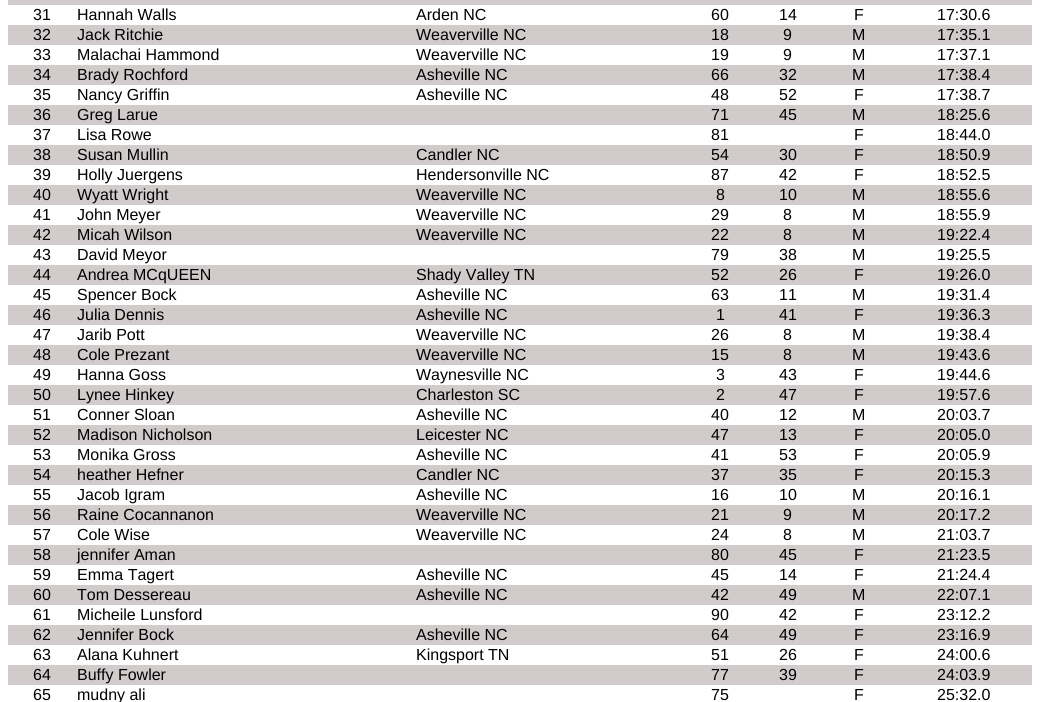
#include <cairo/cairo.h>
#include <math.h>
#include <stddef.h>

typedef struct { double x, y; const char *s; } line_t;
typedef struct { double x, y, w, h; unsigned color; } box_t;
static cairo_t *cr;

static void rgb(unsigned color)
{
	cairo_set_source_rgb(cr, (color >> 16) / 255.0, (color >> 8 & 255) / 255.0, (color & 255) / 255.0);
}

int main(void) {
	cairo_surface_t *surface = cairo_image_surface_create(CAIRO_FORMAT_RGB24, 1040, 702);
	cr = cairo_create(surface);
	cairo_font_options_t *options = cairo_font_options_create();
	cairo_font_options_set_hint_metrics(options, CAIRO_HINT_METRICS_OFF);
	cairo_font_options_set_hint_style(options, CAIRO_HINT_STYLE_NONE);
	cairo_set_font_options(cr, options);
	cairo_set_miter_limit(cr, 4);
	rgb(0xffffff);
	cairo_paint(cr);
	{
		static const box_t items[] = {
			{8, 0, 1024, 5, 0xd1cccb},
			{8, 25, 1024, 20, 0xd1cccb},
			{8, 65, 1024, 20, 0xd1cccb},
			{8, 105, 1024, 20, 0xd1cccb},
			{8, 145, 1024, 20, 0xd1cccb},
			{8, 185, 1024, 20, 0xd1cccb},
			{8, 225, 1024, 20, 0xd1cccb},
			{8, 265, 1024, 20, 0xd1cccb},
			{8, 305, 1024, 20, 0xd1cccb},
			{8, 345, 1024, 20, 0xd1cccb},
			{8, 385, 1024, 20, 0xd1cccb},
			{8, 425, 1024, 20, 0xd1cccb},
			{8, 465, 1024, 20, 0xd1cccb},
			{8, 505, 1024, 20, 0xd1cccb},
			{8, 545, 1024, 20, 0xd1cccb},
			{8, 585, 1024, 20, 0xd1cccb},
			{8, 625, 1024, 20, 0xd1cccb},
			{8, 665, 1024, 20, 0xd1cccb},
		};
		for (size_t i = 0; i < sizeof items / sizeof *items; i++) {
			rgb(items[i].color);
			cairo_rectangle(cr, items[i].x, items[i].y, items[i].w, items[i].h);
			cairo_fill(cr);
		}
	}
	cairo_select_font_face(cr, "Liberation Sans", CAIRO_FONT_SLANT_NORMAL, CAIRO_FONT_WEIGHT_NORMAL);
	cairo_set_font_size(cr, 16);
	rgb(0x000000);
	{
		static const line_t items[] = {
			{33, 20, "31"},
			{77, 20, "Hannah Walls"},
			{416, 20, "Arden NC"},
			{711, 20, "60"},
			{779, 20, "14"},
			{854, 20, "F"},
			{937, 20, "17:30.6"},
			{33, 40, "32"},
			{77, 40, "Jack Ritchie"},
			{416, 40, "Weaverville NC"},
			{711, 40, "18"},
			{783, 40, "9"},
			{852, 40, "M"},
			{937, 40, "17:35.1"},
			{33, 60, "33"},
			{77, 60, "Malachai Hammond"},
			{416, 60, "Weaverville NC"},
			{711, 60, "19"},
			{783, 60, "9"},
			{852, 60, "M"},
			{937, 60, "17:37.1"},
			{33, 80, "34"},
			{77, 80, "Brady Rochford"},
			{416, 80, "Asheville NC"},
			{711, 80, "66"},
			{779, 80, "32"},
			{852, 80, "M"},
			{937, 80, "17:38.4"},
			{33, 100, "35"},
			{77, 100, "Nancy Griffin"},
			{416, 100, "Asheville NC"},
			{711, 100, "48"},
			{779, 100, "52"},
			{854, 100, "F"},
			{937, 100, "17:38.7"},
			{33, 120, "36"},
			{77, 120, "Greg Larue"},
			{711, 120, "71"},
			{779, 120, "45"},
			{852, 120, "M"},
			{937, 120, "18:25.6"},
			{33, 140, "37"},
			{77, 140, "Lisa Rowe"},
			{711, 140, "81"},
			{854, 140, "F"},
			{937, 140, "18:44.0"},
			{33, 160, "38"},
			{77, 160, "Susan Mullin"},
			{416, 160, "Candler NC"},
			{711, 160, "54"},
			{779, 160, "30"},
			{854, 160, "F"},
			{937, 160, "18:50.9"},
			{33, 180, "39"},
			{77, 180, "Holly Juergens"},
			{416, 180, "Hendersonville NC"},
			{711, 180, "87"},
			{779, 180, "42"},
			{854, 180, "F"},
			{937, 180, "18:52.5"},
			{33, 200, "40"},
			{77, 200, "Wyatt Wright"},
			{416, 200, "Weaverville NC"},
			{716, 200, "8"},
			{779, 200, "10"},
			{852, 200, "M"},
			{937, 200, "18:55.6"},
			{33, 220, "41"},
			{77, 220, "John Meyer"},
			{416, 220, "Weaverville NC"},
			{711, 220, "29"},
			{783, 220, "8"},
			{852, 220, "M"},
			{937, 220, "18:55.9"},
			{33, 240, "42"},
			{77, 240, "Micah Wilson"},
			{416, 240, "Weaverville NC"},
			{711, 240, "22"},
			{783, 240, "8"},
			{852, 240, "M"},
			{937, 240, "19:22.4"},
			{33, 260, "43"},
			{77, 260, "David Meyor"},
			{711, 260, "79"},
			{779, 260, "38"},
			{852, 260, "M"},
			{937, 260, "19:25.5"},
			{33, 280, "44"},
			{77, 280, "Andrea MCqUEEN"},
			{416, 280, "Shady Valley TN"},
			{711, 280, "52"},
			{779, 280, "26"},
			{854, 280, "F"},
			{937, 280, "19:26.0"},
			{33, 300, "45"},
			{77, 300, "Spencer Bock"},
			{416, 300, "Asheville NC"},
			{711, 300, "63"},
			{779, 300, "11"},
			{852, 300, "M"},
			{937, 300, "19:31.4"},
			{33, 320, "46"},
			{77, 320, "Julia Dennis"},
			{416, 320, "Asheville NC"},
			{716, 320, "1"},
			{779, 320, "41"},
			{854, 320, "F"},
			{937, 320, "19:36.3"},
			{33, 340, "47"},
			{77, 340, "Jarib Pott"},
			{416, 340, "Weaverville NC"},
			{711, 340, "26"},
			{783, 340, "8"},
			{852, 340, "M"},
			{937, 340, "19:38.4"},
			{33, 360, "48"},
			{77, 360, "Cole Prezant"},
			{416, 360, "Weaverville NC"},
			{711, 360, "15"},
			{783, 360, "8"},
			{852, 360, "M"},
			{937, 360, "19:43.6"},
			{33, 380, "49"},
			{77, 380, "Hanna Goss"},
			{416, 380, "Waynesville NC"},
			{716, 380, "3"},
			{779, 380, "43"},
			{854, 380, "F"},
			{937, 380, "19:44.6"},
			{33, 400, "50"},
			{77, 400, "Lynee Hinkey"},
			{416, 400, "Charleston SC"},
			{716, 400, "2"},
			{779, 400, "47"},
			{854, 400, "F"},
			{937, 400, "19:57.6"},
			{33, 420, "51"},
			{77, 420, "Conner Sloan"},
			{416, 420, "Asheville NC"},
			{711, 420, "40"},
			{779, 420, "12"},
			{852, 420, "M"},
			{937, 420, "20:03.7"},
			{33, 440, "52"},
			{77, 440, "Madison Nicholson"},
			{416, 440, "Leicester NC"},
			{711, 440, "47"},
			{779, 440, "13"},
			{854, 440, "F"},
			{937, 440, "20:05.0"},
			{33, 460, "53"},
			{77, 460, "Monika Gross"},
			{416, 460, "Asheville NC"},
			{711, 460, "41"},
			{779, 460, "53"},
			{854, 460, "F"},
			{937, 460, "20:05.9"},
			{33, 480, "54"},
			{77, 480, "heather Hefner"},
			{416, 480, "Candler NC"},
			{711, 480, "37"},
			{779, 480, "35"},
			{854, 480, "F"},
			{937, 480, "20:15.3"},
			{33, 500, "55"},
			{77, 500, "Jacob Igram"},
			{416, 500, "Asheville NC"},
			{711, 500, "16"},
			{779, 500, "10"},
			{852, 500, "M"},
			{937, 500, "20:16.1"},
			{33, 520, "56"},
			{77, 520, "Raine Cocannanon"},
			{416, 520, "Weaverville NC"},
			{711, 520, "21"},
			{783, 520, "9"},
			{852, 520, "M"},
			{937, 520, "20:17.2"},
			{33, 540, "57"},
			{77, 540, "Cole Wise"},
			{416, 540, "Weaverville NC"},
			{711, 540, "24"},
			{783, 540, "8"},
			{852, 540, "M"},
			{937, 540, "21:03.7"},
			{33, 560, "58"},
			{77, 560, "jennifer Aman"},
			{711, 560, "80"},
			{779, 560, "45"},
			{854, 560, "F"},
			{937, 560, "21:23.5"},
			{33, 580, "59"},
			{77, 580, "Emma Tagert"},
			{416, 580, "Asheville NC"},
			{711, 580, "45"},
			{779, 580, "14"},
			{854, 580, "F"},
			{937, 580, "21:24.4"},
			{33, 600, "60"},
			{77, 600, "Tom Dessereau"},
			{416, 600, "Asheville NC"},
			{711, 600, "42"},
			{779, 600, "49"},
			{852, 600, "M"},
			{937, 600, "22:07.1"},
			{33, 620, "61"},
			{77, 620, "Micheile Lunsford"},
			{711, 620, "90"},
			{779, 620, "42"},
			{854, 620, "F"},
			{937, 620, "23:12.2"},
			{33, 640, "62"},
			{77, 640, "Jennifer Bock"},
			{416, 640, "Asheville NC"},
			{711, 640, "64"},
			{779, 640, "49"},
			{854, 640, "F"},
			{937, 640, "23:16.9"},
			{33, 660, "63"},
			{77, 660, "Alana Kuhnert"},
			{416, 660, "Kingsport TN"},
			{711, 660, "51"},
			{779, 660, "26"},
			{854, 660, "F"},
			{937, 660, "24:00.6"},
			{33, 680, "64"},
			{77, 680, "Buffy Fowler"},
			{711, 680, "77"},
			{779, 680, "39"},
			{854, 680, "F"},
			{937, 680, "24:03.9"},
			{33, 700, "65"},
			{77, 700, "mudny ali"},
			{711, 700, "75"},
			{854, 700, "F"},
			{937, 700, "25:32.0"},
		};
		for (size_t i = 0; i < sizeof items / sizeof *items; i++) {
			cairo_move_to(cr, items[i].x, items[i].y);
			cairo_show_text(cr, items[i].s);
		}
	}
	cairo_surface_write_to_png(surface, "page.png");
	cairo_font_options_destroy(options);
	cairo_destroy(cr);
	cairo_surface_destroy(surface);
	return 0;
}
